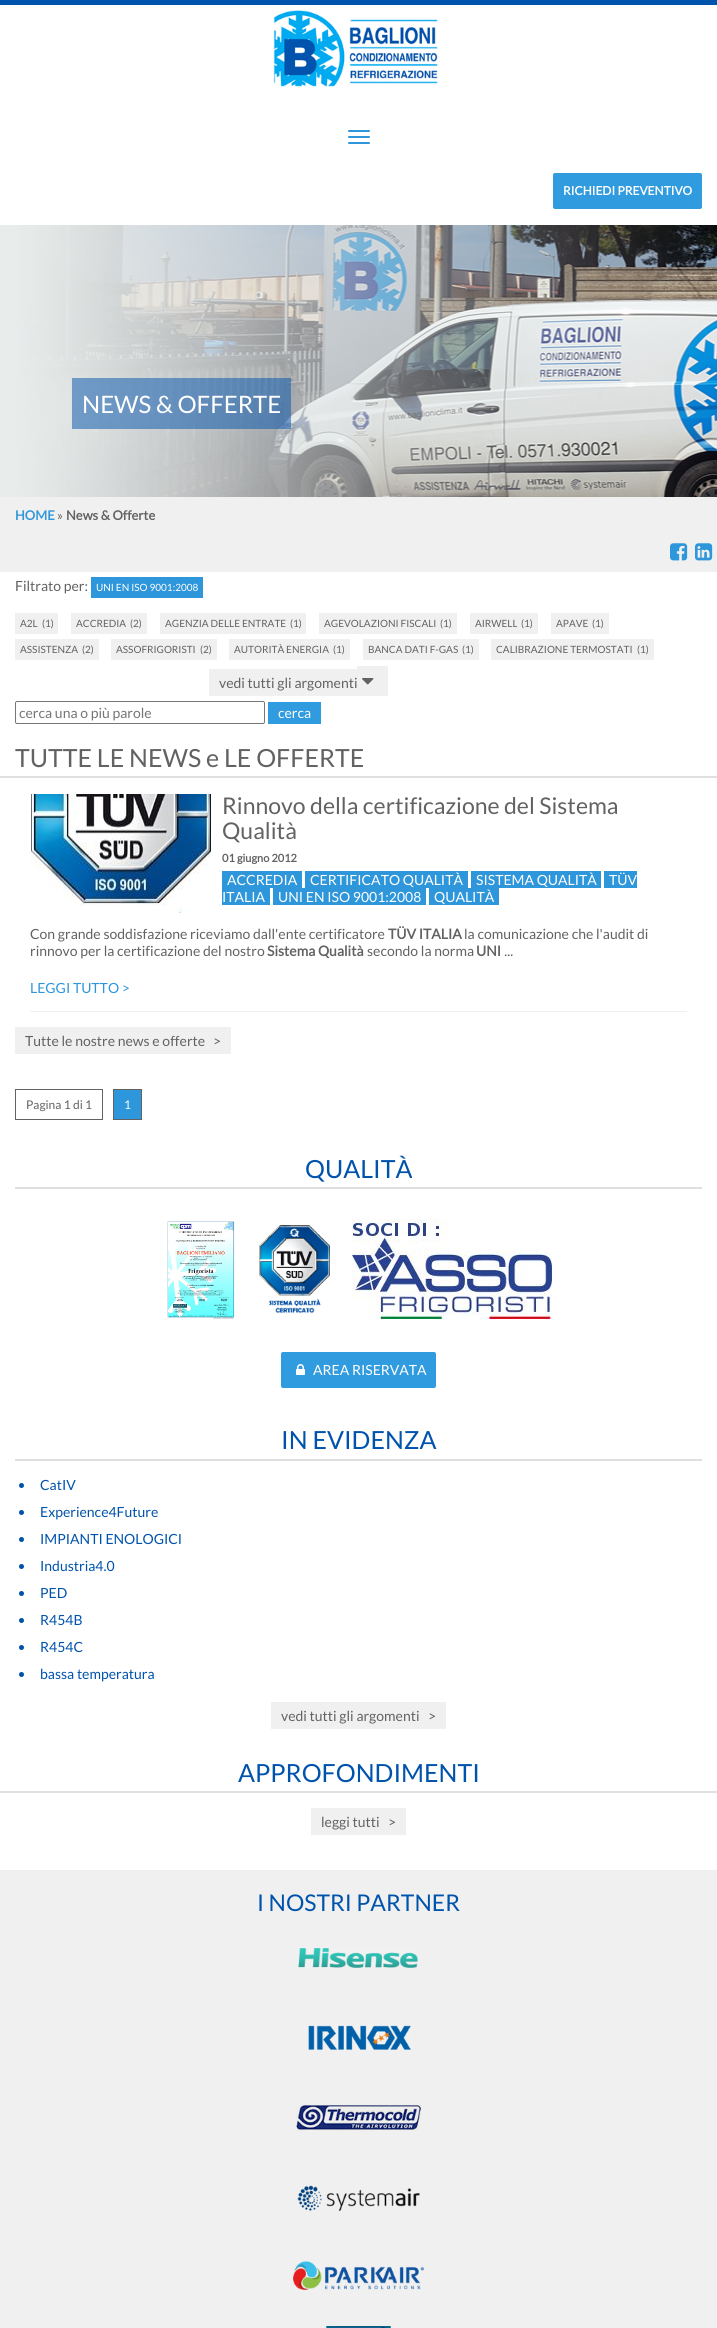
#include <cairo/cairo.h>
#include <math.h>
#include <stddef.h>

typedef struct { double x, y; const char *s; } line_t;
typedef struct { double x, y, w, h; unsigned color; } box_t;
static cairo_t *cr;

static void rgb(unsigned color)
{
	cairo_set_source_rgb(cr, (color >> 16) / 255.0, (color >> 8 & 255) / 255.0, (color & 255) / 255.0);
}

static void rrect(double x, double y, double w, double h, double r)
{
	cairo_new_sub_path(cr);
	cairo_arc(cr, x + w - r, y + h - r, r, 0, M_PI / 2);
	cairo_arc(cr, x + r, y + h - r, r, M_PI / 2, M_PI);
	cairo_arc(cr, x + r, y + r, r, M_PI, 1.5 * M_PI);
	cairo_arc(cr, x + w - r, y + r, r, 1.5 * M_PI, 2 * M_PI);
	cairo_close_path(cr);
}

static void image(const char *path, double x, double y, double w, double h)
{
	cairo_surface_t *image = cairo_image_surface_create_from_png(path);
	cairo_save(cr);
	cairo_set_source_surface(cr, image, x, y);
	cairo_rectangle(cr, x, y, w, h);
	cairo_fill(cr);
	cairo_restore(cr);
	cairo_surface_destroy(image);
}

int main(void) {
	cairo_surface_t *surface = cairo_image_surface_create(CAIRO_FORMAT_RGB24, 717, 2328);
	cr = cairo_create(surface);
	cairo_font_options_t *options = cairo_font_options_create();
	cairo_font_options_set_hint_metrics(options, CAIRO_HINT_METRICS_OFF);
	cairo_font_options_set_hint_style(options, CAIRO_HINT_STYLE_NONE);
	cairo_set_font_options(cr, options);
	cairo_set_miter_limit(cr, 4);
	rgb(0xffffff);
	cairo_paint(cr);
	rgb(0x0053ac);
	cairo_rectangle(cr, 0, 0, 717, 5);
	cairo_fill(cr);
	image("img/1.png", 273, 10, 165, 77);
	rgb(0x2e96db);
	rrect(348, 130, 22, 2, 1);
	cairo_fill(cr);
	rrect(348, 136, 22, 2, 1);
	cairo_fill(cr);
	rrect(348, 142, 22, 2, 1);
	cairo_fill(cr);
	rgb(0x319bdf);
	rrect(553, 173, 149, 36, 2);
	cairo_fill(cr);
	image("img/2.png", 0, 225, 717, 272);
	cairo_set_source_rgba(cr, 0, 0.325, 0.675, 0.5);
	cairo_rectangle(cr, 72, 378, 219, 51);
	cairo_fill(cr);
	rgb(0xf0f0f0);
	cairo_rectangle(cr, 0, 497, 717, 75);
	cairo_fill(cr);
	image("img/3.png", 670, 543, 18, 18);
	image("img/4.png", 695, 543, 18, 18);
	{
		static const box_t items[] = {
			{91, 577, 112, 21, 0x2e96db},
			{15, 613, 43, 21, 0xf0f0f0},
			{71, 613, 76, 21, 0xf0f0f0},
			{160, 613, 146, 21, 0xf0f0f0},
			{319, 613, 138, 21, 0xf0f0f0},
			{470, 613, 68, 21, 0xf0f0f0},
			{551, 613, 58, 21, 0xf0f0f0},
			{15, 639, 84, 21, 0xf0f0f0},
			{111, 639, 106, 21, 0xf0f0f0},
			{229, 639, 121, 21, 0xf0f0f0},
			{363, 639, 116, 21, 0xf0f0f0},
			{491, 639, 163, 21, 0xf0f0f0},
			{209, 669, 148, 27, 0xf0f0f0},
			{357, 666, 31, 30, 0xf0f0f0},
		};
		for (size_t i = 0; i < sizeof items / sizeof *items; i++) {
			rgb(items[i].color);
			cairo_rectangle(cr, items[i].x, items[i].y, items[i].w, items[i].h);
			cairo_fill(cr);
		}
	}
	image("img/5.png", 362, 678, 12, 7);
	rrect(15.5, 701.5, 249, 22, 1.5);
	rgb(0x767676);
	cairo_set_line_width(cr, 1);
	cairo_stroke(cr);
	{
		static const box_t items[] = {
			{268, 702, 53, 22, 0x319bdf},
			{0, 776, 717, 2, 0xe0e0e0},
			{30, 1011, 657, 1, 0xf0f0f0},
		};
		for (size_t i = 0; i < sizeof items / sizeof *items; i++) {
			rgb(items[i].color);
			cairo_rectangle(cr, items[i].x, items[i].y, items[i].w, items[i].h);
			cairo_fill(cr);
		}
	}
	image("img/6.png", 31, 794, 180, 119);
	{
		static const box_t items[] = {
			{222, 871, 80, 17, 0x2e96db},
			{305, 871, 163, 17, 0x2e96db},
			{471, 871, 130, 17, 0x2e96db},
			{604, 871, 33, 17, 0x2e96db},
			{222, 888, 48, 17, 0x2e96db},
			{273, 888, 153, 17, 0x2e96db},
			{429, 888, 70, 17, 0x2e96db},
			{15, 1027, 216, 27, 0xf0f0f0},
		};
		for (size_t i = 0; i < sizeof items / sizeof *items; i++) {
			rgb(items[i].color);
			cairo_rectangle(cr, items[i].x, items[i].y, items[i].w, items[i].h);
			cairo_fill(cr);
		}
	}
	cairo_rectangle(cr, 15.5, 1089.5, 87, 30);
	rgb(0x626262);
	cairo_stroke(cr);
	rgb(0x2e96db);
	cairo_rectangle(cr, 113.5, 1089.5, 28, 30);
	cairo_fill_preserve(cr);
	rgb(0x626262);
	cairo_stroke(cr);
	rgb(0xe0e0e0);
	cairo_rectangle(cr, 15, 1187, 687, 2);
	cairo_fill(cr);
	image("img/7.png", 167, 1221, 68, 98);
	image("img/8.png", 259, 1225, 71, 89);
	image("img/9.png", 352, 1219, 200, 100);
	rgb(0x319bdf);
	rrect(281, 1352, 155, 36, 2);
	cairo_fill(cr);
	image("img/10.png", 296, 1364, 9, 11);
	rgb(0xe0e0e0);
	cairo_rectangle(cr, 15, 1459, 687, 2);
	cairo_fill(cr);
	rgb(0x0053ac);
	cairo_arc(cr, 21.5, 1485.5, 2.5, 0, 2 * M_PI);
	cairo_fill(cr);
	cairo_arc(cr, 21.5, 1512.5, 2.5, 0, 2 * M_PI);
	cairo_fill(cr);
	cairo_arc(cr, 21.5, 1539.5, 2.5, 0, 2 * M_PI);
	cairo_fill(cr);
	cairo_arc(cr, 21.5, 1566.5, 2.5, 0, 2 * M_PI);
	cairo_fill(cr);
	cairo_arc(cr, 21.5, 1593.5, 2.5, 0, 2 * M_PI);
	cairo_fill(cr);
	cairo_arc(cr, 21.5, 1620.5, 2.5, 0, 2 * M_PI);
	cairo_fill(cr);
	cairo_arc(cr, 21.5, 1647.5, 2.5, 0, 2 * M_PI);
	cairo_fill(cr);
	cairo_arc(cr, 21.5, 1674.5, 2.5, 0, 2 * M_PI);
	cairo_fill(cr);
	{
		static const box_t items[] = {
			{271, 1702, 175, 27, 0xf0f0f0},
			{0, 1791, 717, 2, 0xe0e0e0},
			{311, 1808, 95, 27, 0xf0f0f0},
			{0, 1870, 717, 458, 0xf0f0f0},
		};
		for (size_t i = 0; i < sizeof items / sizeof *items; i++) {
			rgb(items[i].color);
			cairo_rectangle(cr, items[i].x, items[i].y, items[i].w, items[i].h);
			cairo_fill(cr);
		}
	}
	image("img/11.png", 298, 1948, 120, 20);
	image("img/12.png", 308, 2025, 103, 25);
	image("img/13.png", 295, 2103, 127, 29);
	image("img/14.png", 297, 2185, 123, 27);
	image("img/15.png", 293, 2261, 131, 29);
	image("img/16.png", 326, 2326, 65, 2);
	cairo_select_font_face(cr, "Lato", CAIRO_FONT_SLANT_NORMAL, CAIRO_FONT_WEIGHT_BOLD);
	cairo_set_font_size(cr, 12);
	rgb(0xffffff);
	cairo_move_to(cr, 563, 195);
	cairo_show_text(cr, "RICHIEDI PREVENTIVO");
	cairo_select_font_face(cr, "Lato", CAIRO_FONT_SLANT_NORMAL, CAIRO_FONT_WEIGHT_NORMAL);
	cairo_set_font_size(cr, 24);
	cairo_move_to(cr, 82, 413);
	cairo_show_text(cr, "NEWS & OFFERTE");
	cairo_select_font_face(cr, "Lato", CAIRO_FONT_SLANT_NORMAL, CAIRO_FONT_WEIGHT_BOLD);
	cairo_set_font_size(cr, 13);
	rgb(0x2e96db);
	cairo_move_to(cr, 15, 520);
	cairo_show_text(cr, "HOME");
	cairo_select_font_face(cr, "Lato", CAIRO_FONT_SLANT_NORMAL, CAIRO_FONT_WEIGHT_NORMAL);
	rgb(0x626262);
	cairo_move_to(cr, 57, 520);
	cairo_show_text(cr, "»");
	cairo_select_font_face(cr, "Lato", CAIRO_FONT_SLANT_NORMAL, CAIRO_FONT_WEIGHT_BOLD);
	cairo_move_to(cr, 66, 520);
	cairo_show_text(cr, "News & Offerte");
	cairo_select_font_face(cr, "Lato", CAIRO_FONT_SLANT_NORMAL, CAIRO_FONT_WEIGHT_NORMAL);
	cairo_set_font_size(cr, 14);
	cairo_move_to(cr, 15, 591);
	cairo_show_text(cr, "Filtrato per:");
	cairo_set_font_size(cr, 10);
	rgb(0xffffff);
	cairo_move_to(cr, 96, 591);
	cairo_show_text(cr, "UNI EN ISO 9001:2008");
	rgb(0x626262);
	{
		static const line_t items[] = {
			{20, 627, "A2L"},
			{42, 627, "(1)"},
			{76, 627, "ACCREDIA"},
			{130, 627, "(2)"},
			{165, 627, "AGENZIA DELLE ENTRATE"},
			{290, 627, "(1)"},
			{324, 627, "AGEVOLAZIONI FISCALI"},
			{440, 627, "(1)"},
			{475, 627, "AIRWELL"},
			{521, 627, "(1)"},
			{556, 627, "APAVE"},
			{592, 627, "(1)"},
			{20, 653, "ASSISTENZA"},
			{82, 653, "(2)"},
			{116, 653, "ASSOFRIGORISTI"},
			{200, 653, "(2)"},
			{234, 653, "AUTORITÀ ENERGIA"},
			{333, 653, "(1)"},
			{368, 653, "BANCA DATI F-GAS"},
			{462, 653, "(1)"},
			{496, 653, "CALIBRAZIONE TERMOSTATI"},
			{637, 653, "(1)"},
		};
		for (size_t i = 0; i < sizeof items / sizeof *items; i++) {
			cairo_move_to(cr, items[i].x, items[i].y);
			cairo_show_text(cr, items[i].s);
		}
	}
	cairo_set_font_size(cr, 14);
	cairo_move_to(cr, 219, 688);
	cairo_show_text(cr, "vedi tutti gli argomenti");
	rgb(0x757575);
	cairo_move_to(cr, 19, 718);
	cairo_show_text(cr, "cerca una o più parole");
	rgb(0xffffff);
	cairo_move_to(cr, 278, 718);
	cairo_show_text(cr, "cerca");
	cairo_set_font_size(cr, 25);
	rgb(0x626262);
	cairo_move_to(cr, 15, 767);
	cairo_show_text(cr, "TUTTE LE NEWS e LE OFFERTE");
	cairo_set_font_size(cr, 23);
	cairo_move_to(cr, 222, 814);
	cairo_show_text(cr, "Rinnovo della certificazione del Sistema");
	cairo_move_to(cr, 222, 839);
	cairo_show_text(cr, "Qualità");
	cairo_select_font_face(cr, "Lato", CAIRO_FONT_SLANT_NORMAL, CAIRO_FONT_WEIGHT_BOLD);
	cairo_set_font_size(cr, 11);
	cairo_move_to(cr, 222, 862);
	cairo_show_text(cr, "01 giugno 2012");
	cairo_select_font_face(cr, "Lato", CAIRO_FONT_SLANT_NORMAL, CAIRO_FONT_WEIGHT_NORMAL);
	cairo_set_font_size(cr, 14);
	rgb(0xffffff);
	{
		static const line_t items[] = {
			{227, 885, "ACCREDIA"},
			{310, 885, "CERTIFICATO QUALITÀ"},
			{476, 885, "SISTEMA QUALITÀ"},
			{609, 885, "TÜV"},
			{222, 902, "ITALIA"},
			{278, 902, "UNI EN ISO 9001:2008"},
			{434, 902, "QUALITÀ"},
		};
		for (size_t i = 0; i < sizeof items / sizeof *items; i++) {
			cairo_move_to(cr, items[i].x, items[i].y);
			cairo_show_text(cr, items[i].s);
		}
	}
	rgb(0x626262);
	cairo_move_to(cr, 30, 939);
	cairo_show_text(cr, "Con grande soddisfazione riceviamo dall'ente certificatore");
	cairo_select_font_face(cr, "Lato", CAIRO_FONT_SLANT_NORMAL, CAIRO_FONT_WEIGHT_BOLD);
	cairo_move_to(cr, 388, 939);
	cairo_show_text(cr, "TÜV ITALIA");
	cairo_select_font_face(cr, "Lato", CAIRO_FONT_SLANT_NORMAL, CAIRO_FONT_WEIGHT_NORMAL);
	cairo_move_to(cr, 464, 939);
	cairo_show_text(cr, "la comunicazione che l'audit di");
	cairo_move_to(cr, 30, 956);
	cairo_show_text(cr, "rinnovo per la certificazione del nostro");
	cairo_select_font_face(cr, "Lato", CAIRO_FONT_SLANT_NORMAL, CAIRO_FONT_WEIGHT_BOLD);
	cairo_move_to(cr, 267, 956);
	cairo_show_text(cr, "Sistema Qualità");
	cairo_select_font_face(cr, "Lato", CAIRO_FONT_SLANT_NORMAL, CAIRO_FONT_WEIGHT_NORMAL);
	cairo_move_to(cr, 367, 956);
	cairo_show_text(cr, "secondo la norma");
	cairo_select_font_face(cr, "Lato", CAIRO_FONT_SLANT_NORMAL, CAIRO_FONT_WEIGHT_BOLD);
	cairo_move_to(cr, 476, 956);
	cairo_show_text(cr, "UNI");
	cairo_select_font_face(cr, "Lato", CAIRO_FONT_SLANT_ITALIC, CAIRO_FONT_WEIGHT_NORMAL);
	cairo_move_to(cr, 504, 956);
	cairo_show_text(cr, "...");
	cairo_select_font_face(cr, "Lato", CAIRO_FONT_SLANT_NORMAL, CAIRO_FONT_WEIGHT_NORMAL);
	rgb(0x2e96db);
	cairo_move_to(cr, 30, 993);
	cairo_show_text(cr, "LEGGI TUTTO >");
	rgb(0x626262);
	cairo_move_to(cr, 25, 1046);
	cairo_show_text(cr, "Tutte le nostre news e offerte");
	cairo_move_to(cr, 213, 1046);
	cairo_show_text(cr, ">");
	cairo_set_font_size(cr, 12);
	cairo_move_to(cr, 26, 1109);
	cairo_show_text(cr, "Pagina 1 di 1");
	rgb(0xffffff);
	cairo_move_to(cr, 124, 1109);
	cairo_show_text(cr, "1");
	cairo_set_font_size(cr, 25);
	rgb(0x0053ac);
	cairo_move_to(cr, 305, 1178);
	cairo_show_text(cr, "QUALITÀ");
	cairo_set_font_size(cr, 14);
	rgb(0xffffff);
	cairo_move_to(cr, 313, 1375);
	cairo_show_text(cr, "AREA RISERVATA");
	cairo_set_font_size(cr, 25);
	rgb(0x0053ac);
	cairo_move_to(cr, 281, 1449);
	cairo_show_text(cr, "IN EVIDENZA");
	cairo_set_font_size(cr, 14);
	{
		static const line_t items[] = {
			{40, 1490, "CatIV"},
			{40, 1517, "Experience4Future"},
			{40, 1544, "IMPIANTI ENOLOGICI"},
			{40, 1571, "Industria4.0"},
			{40, 1598, "PED"},
			{40, 1625, "R454B"},
			{40, 1652, "R454C"},
			{40, 1679, "bassa temperatura"},
		};
		for (size_t i = 0; i < sizeof items / sizeof *items; i++) {
			cairo_move_to(cr, items[i].x, items[i].y);
			cairo_show_text(cr, items[i].s);
		}
	}
	rgb(0x626262);
	cairo_move_to(cr, 281, 1721);
	cairo_show_text(cr, "vedi tutti gli argomenti");
	cairo_move_to(cr, 428, 1721);
	cairo_show_text(cr, ">");
	cairo_set_font_size(cr, 25);
	rgb(0x0053ac);
	cairo_move_to(cr, 238, 1782);
	cairo_show_text(cr, "APPROFONDIMENTI");
	cairo_set_font_size(cr, 14);
	rgb(0x626262);
	cairo_move_to(cr, 321, 1827);
	cairo_show_text(cr, "leggi tutti");
	cairo_move_to(cr, 388, 1827);
	cairo_show_text(cr, ">");
	cairo_set_font_size(cr, 23);
	rgb(0x0053ac);
	cairo_move_to(cr, 257, 1911);
	cairo_show_text(cr, "I NOSTRI PARTNER");
	cairo_surface_write_to_png(surface, "page.png");
	cairo_font_options_destroy(options);
	cairo_destroy(cr);
	cairo_surface_destroy(surface);
	return 0;
}
